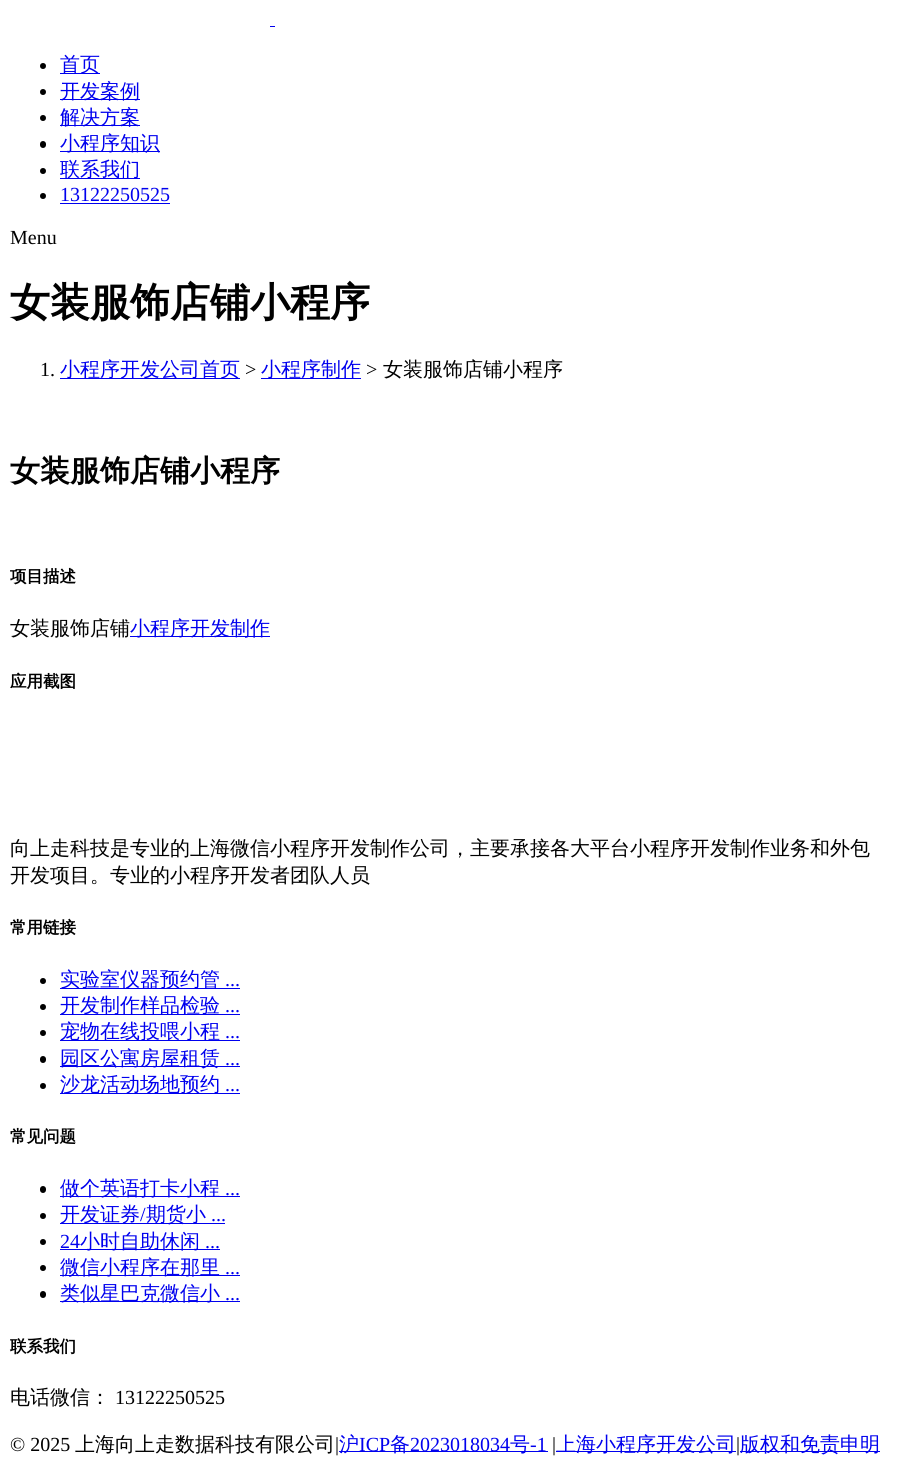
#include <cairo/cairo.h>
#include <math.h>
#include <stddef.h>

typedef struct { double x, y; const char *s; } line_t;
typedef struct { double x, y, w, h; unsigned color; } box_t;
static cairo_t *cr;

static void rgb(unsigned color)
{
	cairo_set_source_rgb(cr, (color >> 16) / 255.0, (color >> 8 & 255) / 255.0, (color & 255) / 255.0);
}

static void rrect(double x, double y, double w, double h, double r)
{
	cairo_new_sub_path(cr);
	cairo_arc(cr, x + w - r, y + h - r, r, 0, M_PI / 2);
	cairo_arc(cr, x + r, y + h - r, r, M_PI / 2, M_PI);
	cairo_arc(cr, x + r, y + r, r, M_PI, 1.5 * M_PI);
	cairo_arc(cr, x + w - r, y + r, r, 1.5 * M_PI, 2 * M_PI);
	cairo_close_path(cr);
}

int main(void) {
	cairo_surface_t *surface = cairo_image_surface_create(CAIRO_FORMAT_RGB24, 897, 1461);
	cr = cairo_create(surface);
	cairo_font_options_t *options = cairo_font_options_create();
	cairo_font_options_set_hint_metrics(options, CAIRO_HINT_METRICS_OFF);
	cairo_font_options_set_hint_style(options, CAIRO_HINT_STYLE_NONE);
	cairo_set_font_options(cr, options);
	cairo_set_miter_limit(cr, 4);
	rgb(0xffffff);
	cairo_paint(cr);
	rgb(0x0000ee);
	cairo_rectangle(cr, 270, 26, 5, 1);
	cairo_fill(cr);
	rgb(0x000000);
	cairo_arc(cr, 43, 66, 3, 0, 2 * M_PI);
	cairo_fill(cr);
	rgb(0x0000ee);
	cairo_rectangle(cr, 60, 73, 40, 1);
	cairo_fill(cr);
	rgb(0x000000);
	cairo_arc(cr, 43, 92, 3, 0, 2 * M_PI);
	cairo_fill(cr);
	rgb(0x0000ee);
	cairo_rectangle(cr, 60, 99, 80, 1);
	cairo_fill(cr);
	rgb(0x000000);
	cairo_arc(cr, 43, 118, 3, 0, 2 * M_PI);
	cairo_fill(cr);
	rgb(0x0000ee);
	cairo_rectangle(cr, 60, 125, 80, 1);
	cairo_fill(cr);
	rgb(0x000000);
	rrect(40, 141, 6, 7, 3);
	cairo_fill(cr);
	rgb(0x0000ee);
	cairo_rectangle(cr, 60, 151, 100, 1);
	cairo_fill(cr);
	rgb(0x000000);
	cairo_arc(cr, 43, 171, 3, 0, 2 * M_PI);
	cairo_fill(cr);
	rgb(0x0000ee);
	cairo_rectangle(cr, 60, 178, 80, 1);
	cairo_fill(cr);
	rgb(0x000000);
	cairo_arc(cr, 43, 196, 3, 0, 2 * M_PI);
	cairo_fill(cr);
	{
		static const box_t items[] = {
			{60, 203, 110, 1, 0x0000ee},
			{60, 378, 180, 1, 0x0000ee},
			{261, 378, 100, 1, 0x0000ee},
			{130, 636, 140, 1, 0x0000ee},
		};
		for (size_t i = 0; i < sizeof items / sizeof *items; i++) {
			rgb(items[i].color);
			cairo_rectangle(cr, items[i].x, items[i].y, items[i].w, items[i].h);
			cairo_fill(cr);
		}
	}
	rgb(0x000000);
	cairo_arc(cr, 43, 981, 3, 0, 2 * M_PI);
	cairo_fill(cr);
	rgb(0x0000ee);
	cairo_rectangle(cr, 60, 988, 180, 1);
	cairo_fill(cr);
	rgb(0x000000);
	cairo_arc(cr, 43, 1007, 3, 0, 2 * M_PI);
	cairo_fill(cr);
	rgb(0x0000ee);
	cairo_rectangle(cr, 60, 1014, 180, 1);
	cairo_fill(cr);
	rgb(0x000000);
	cairo_arc(cr, 43, 1033, 3, 0, 2 * M_PI);
	cairo_fill(cr);
	rgb(0x0000ee);
	cairo_rectangle(cr, 60, 1040, 180, 1);
	cairo_fill(cr);
	rgb(0x000000);
	rrect(40, 1056, 6, 7, 3);
	cairo_fill(cr);
	rgb(0x0000ee);
	cairo_rectangle(cr, 60, 1066, 180, 1);
	cairo_fill(cr);
	rgb(0x000000);
	cairo_arc(cr, 43, 1086, 3, 0, 2 * M_PI);
	cairo_fill(cr);
	rgb(0x0000ee);
	cairo_rectangle(cr, 60, 1093, 180, 1);
	cairo_fill(cr);
	rgb(0x000000);
	rrect(40, 1186, 6, 7, 3);
	cairo_fill(cr);
	rgb(0x0000ee);
	cairo_rectangle(cr, 60, 1196, 180, 1);
	cairo_fill(cr);
	rgb(0x000000);
	cairo_arc(cr, 43, 1216, 3, 0, 2 * M_PI);
	cairo_fill(cr);
	rgb(0x0000ee);
	cairo_rectangle(cr, 60, 1223, 165, 1);
	cairo_fill(cr);
	rgb(0x000000);
	cairo_arc(cr, 43, 1242, 3, 0, 2 * M_PI);
	cairo_fill(cr);
	rgb(0x0000ee);
	cairo_rectangle(cr, 60, 1249, 160, 1);
	cairo_fill(cr);
	rgb(0x000000);
	cairo_arc(cr, 43, 1268, 3, 0, 2 * M_PI);
	cairo_fill(cr);
	rgb(0x0000ee);
	cairo_rectangle(cr, 60, 1275, 180, 1);
	cairo_fill(cr);
	rgb(0x000000);
	rrect(40, 1291, 6, 7, 3);
	cairo_fill(cr);
	{
		static const box_t items[] = {
			{60, 1301, 180, 1, 0x0000ee},
			{339, 1451, 209, 1, 0x0000ee},
			{556, 1451, 180, 1, 0x0000ee},
			{740, 1451, 140, 1, 0x0000ee},
		};
		for (size_t i = 0; i < sizeof items / sizeof *items; i++) {
			rgb(items[i].color);
			cairo_rectangle(cr, items[i].x, items[i].y, items[i].w, items[i].h);
			cairo_fill(cr);
		}
	}
	cairo_select_font_face(cr, "WenQuanYi Zen Hei Medium", CAIRO_FONT_SLANT_NORMAL, CAIRO_FONT_WEIGHT_NORMAL);
	cairo_set_font_size(cr, 20);
	{
		static const line_t items[] = {
			{60, 71, "首页"},
			{60, 98, "开发案例"},
			{60, 124, "解决方案"},
			{60, 150, "小程序知识"},
			{60, 176, "联系我们"},
		};
		for (size_t i = 0; i < sizeof items / sizeof *items; i++) {
			cairo_move_to(cr, items[i].x, items[i].y);
			cairo_show_text(cr, items[i].s);
		}
	}
	cairo_select_font_face(cr, "Liberation Serif", CAIRO_FONT_SLANT_NORMAL, CAIRO_FONT_WEIGHT_NORMAL);
	cairo_move_to(cr, 60, 201);
	cairo_show_text(cr, "13122250525");
	rgb(0x000000);
	cairo_move_to(cr, 10, 244);
	cairo_show_text(cr, "Menu");
	cairo_select_font_face(cr, "WenQuanYi Zen Hei", CAIRO_FONT_SLANT_NORMAL, CAIRO_FONT_WEIGHT_BOLD);
	cairo_set_font_size(cr, 40);
	cairo_move_to(cr, 10, 316);
	cairo_show_text(cr, "女装服饰店铺小程序");
	cairo_select_font_face(cr, "Liberation Serif", CAIRO_FONT_SLANT_NORMAL, CAIRO_FONT_WEIGHT_NORMAL);
	cairo_set_font_size(cr, 20);
	cairo_move_to(cr, 40, 376);
	cairo_show_text(cr, "1.");
	cairo_select_font_face(cr, "WenQuanYi Zen Hei Medium", CAIRO_FONT_SLANT_NORMAL, CAIRO_FONT_WEIGHT_NORMAL);
	rgb(0x0000ee);
	cairo_move_to(cr, 60, 376);
	cairo_show_text(cr, "小程序开发公司首页");
	cairo_select_font_face(cr, "Liberation Serif", CAIRO_FONT_SLANT_NORMAL, CAIRO_FONT_WEIGHT_NORMAL);
	rgb(0x000000);
	cairo_move_to(cr, 245, 376);
	cairo_show_text(cr, ">");
	cairo_select_font_face(cr, "WenQuanYi Zen Hei Medium", CAIRO_FONT_SLANT_NORMAL, CAIRO_FONT_WEIGHT_NORMAL);
	rgb(0x0000ee);
	cairo_move_to(cr, 261, 376);
	cairo_show_text(cr, "小程序制作");
	cairo_select_font_face(cr, "Liberation Serif", CAIRO_FONT_SLANT_NORMAL, CAIRO_FONT_WEIGHT_NORMAL);
	rgb(0x000000);
	cairo_move_to(cr, 366, 376);
	cairo_show_text(cr, ">");
	cairo_select_font_face(cr, "WenQuanYi Zen Hei Medium", CAIRO_FONT_SLANT_NORMAL, CAIRO_FONT_WEIGHT_NORMAL);
	cairo_move_to(cr, 383, 376);
	cairo_show_text(cr, "女装服饰店铺小程序");
	cairo_select_font_face(cr, "WenQuanYi Zen Hei", CAIRO_FONT_SLANT_NORMAL, CAIRO_FONT_WEIGHT_BOLD);
	cairo_set_font_size(cr, 30);
	cairo_move_to(cr, 10, 481);
	cairo_show_text(cr, "女装服饰店铺小程序");
	cairo_set_font_size(cr, 16.5);
	cairo_move_to(cr, 10, 582);
	cairo_show_text(cr, "项目描述");
	cairo_select_font_face(cr, "WenQuanYi Zen Hei Medium", CAIRO_FONT_SLANT_NORMAL, CAIRO_FONT_WEIGHT_NORMAL);
	cairo_set_font_size(cr, 20);
	cairo_move_to(cr, 10, 635);
	cairo_show_text(cr, "女装服饰店铺");
	rgb(0x0000ee);
	cairo_move_to(cr, 130, 635);
	cairo_show_text(cr, "小程序开发制作");
	cairo_select_font_face(cr, "WenQuanYi Zen Hei", CAIRO_FONT_SLANT_NORMAL, CAIRO_FONT_WEIGHT_BOLD);
	cairo_set_font_size(cr, 16.5);
	rgb(0x000000);
	cairo_move_to(cr, 10, 687);
	cairo_show_text(cr, "应用截图");
	cairo_select_font_face(cr, "WenQuanYi Zen Hei Medium", CAIRO_FONT_SLANT_NORMAL, CAIRO_FONT_WEIGHT_NORMAL);
	cairo_set_font_size(cr, 20);
	cairo_move_to(cr, 10, 855);
	cairo_show_text(cr, "向上走科技是专业的上海微信小程序开发制作公司，主要承接各大平台小程序开发制作业务和外包");
	cairo_move_to(cr, 10, 882);
	cairo_show_text(cr, "开发项目。专业的小程序开发者团队人员");
	cairo_select_font_face(cr, "WenQuanYi Zen Hei", CAIRO_FONT_SLANT_NORMAL, CAIRO_FONT_WEIGHT_BOLD);
	cairo_set_font_size(cr, 16.5);
	cairo_move_to(cr, 10, 933);
	cairo_show_text(cr, "常用链接");
	cairo_select_font_face(cr, "WenQuanYi Zen Hei Medium", CAIRO_FONT_SLANT_NORMAL, CAIRO_FONT_WEIGHT_NORMAL);
	cairo_set_font_size(cr, 20);
	rgb(0x0000ee);
	cairo_move_to(cr, 60, 986);
	cairo_show_text(cr, "实验室仪器预约管");
	cairo_select_font_face(cr, "Liberation Serif", CAIRO_FONT_SLANT_NORMAL, CAIRO_FONT_WEIGHT_NORMAL);
	cairo_move_to(cr, 225, 986);
	cairo_show_text(cr, "...");
	cairo_select_font_face(cr, "WenQuanYi Zen Hei Medium", CAIRO_FONT_SLANT_NORMAL, CAIRO_FONT_WEIGHT_NORMAL);
	cairo_move_to(cr, 60, 1012);
	cairo_show_text(cr, "开发制作样品检验");
	cairo_select_font_face(cr, "Liberation Serif", CAIRO_FONT_SLANT_NORMAL, CAIRO_FONT_WEIGHT_NORMAL);
	cairo_move_to(cr, 225, 1012);
	cairo_show_text(cr, "...");
	cairo_select_font_face(cr, "WenQuanYi Zen Hei Medium", CAIRO_FONT_SLANT_NORMAL, CAIRO_FONT_WEIGHT_NORMAL);
	cairo_move_to(cr, 60, 1038);
	cairo_show_text(cr, "宠物在线投喂小程");
	cairo_select_font_face(cr, "Liberation Serif", CAIRO_FONT_SLANT_NORMAL, CAIRO_FONT_WEIGHT_NORMAL);
	cairo_move_to(cr, 225, 1038);
	cairo_show_text(cr, "...");
	cairo_select_font_face(cr, "WenQuanYi Zen Hei Medium", CAIRO_FONT_SLANT_NORMAL, CAIRO_FONT_WEIGHT_NORMAL);
	cairo_move_to(cr, 60, 1065);
	cairo_show_text(cr, "园区公寓房屋租赁");
	cairo_select_font_face(cr, "Liberation Serif", CAIRO_FONT_SLANT_NORMAL, CAIRO_FONT_WEIGHT_NORMAL);
	cairo_move_to(cr, 225, 1065);
	cairo_show_text(cr, "...");
	cairo_select_font_face(cr, "WenQuanYi Zen Hei Medium", CAIRO_FONT_SLANT_NORMAL, CAIRO_FONT_WEIGHT_NORMAL);
	cairo_move_to(cr, 60, 1091);
	cairo_show_text(cr, "沙龙活动场地预约");
	cairo_select_font_face(cr, "Liberation Serif", CAIRO_FONT_SLANT_NORMAL, CAIRO_FONT_WEIGHT_NORMAL);
	cairo_move_to(cr, 225, 1091);
	cairo_show_text(cr, "...");
	cairo_select_font_face(cr, "WenQuanYi Zen Hei", CAIRO_FONT_SLANT_NORMAL, CAIRO_FONT_WEIGHT_BOLD);
	cairo_set_font_size(cr, 16.5);
	rgb(0x000000);
	cairo_move_to(cr, 10, 1142);
	cairo_show_text(cr, "常见问题");
	cairo_select_font_face(cr, "WenQuanYi Zen Hei Medium", CAIRO_FONT_SLANT_NORMAL, CAIRO_FONT_WEIGHT_NORMAL);
	cairo_set_font_size(cr, 20);
	rgb(0x0000ee);
	cairo_move_to(cr, 60, 1195);
	cairo_show_text(cr, "做个英语打卡小程");
	cairo_select_font_face(cr, "Liberation Serif", CAIRO_FONT_SLANT_NORMAL, CAIRO_FONT_WEIGHT_NORMAL);
	cairo_move_to(cr, 225, 1195);
	cairo_show_text(cr, "...");
	cairo_select_font_face(cr, "WenQuanYi Zen Hei Medium", CAIRO_FONT_SLANT_NORMAL, CAIRO_FONT_WEIGHT_NORMAL);
	cairo_move_to(cr, 60, 1221);
	cairo_show_text(cr, "开发证券");
	cairo_select_font_face(cr, "Liberation Serif", CAIRO_FONT_SLANT_NORMAL, CAIRO_FONT_WEIGHT_NORMAL);
	cairo_move_to(cr, 140, 1221);
	cairo_show_text(cr, "/");
	cairo_select_font_face(cr, "WenQuanYi Zen Hei Medium", CAIRO_FONT_SLANT_NORMAL, CAIRO_FONT_WEIGHT_NORMAL);
	cairo_move_to(cr, 146, 1221);
	cairo_show_text(cr, "期货小");
	cairo_select_font_face(cr, "Liberation Serif", CAIRO_FONT_SLANT_NORMAL, CAIRO_FONT_WEIGHT_NORMAL);
	cairo_move_to(cr, 211, 1221);
	cairo_show_text(cr, "...");
	cairo_move_to(cr, 60, 1248);
	cairo_show_text(cr, "24");
	cairo_select_font_face(cr, "WenQuanYi Zen Hei Medium", CAIRO_FONT_SLANT_NORMAL, CAIRO_FONT_WEIGHT_NORMAL);
	cairo_move_to(cr, 80, 1248);
	cairo_show_text(cr, "小时自助休闲");
	cairo_select_font_face(cr, "Liberation Serif", CAIRO_FONT_SLANT_NORMAL, CAIRO_FONT_WEIGHT_NORMAL);
	cairo_move_to(cr, 205, 1248);
	cairo_show_text(cr, "...");
	cairo_select_font_face(cr, "WenQuanYi Zen Hei Medium", CAIRO_FONT_SLANT_NORMAL, CAIRO_FONT_WEIGHT_NORMAL);
	cairo_move_to(cr, 60, 1274);
	cairo_show_text(cr, "微信小程序在那里");
	cairo_select_font_face(cr, "Liberation Serif", CAIRO_FONT_SLANT_NORMAL, CAIRO_FONT_WEIGHT_NORMAL);
	cairo_move_to(cr, 225, 1274);
	cairo_show_text(cr, "...");
	cairo_select_font_face(cr, "WenQuanYi Zen Hei Medium", CAIRO_FONT_SLANT_NORMAL, CAIRO_FONT_WEIGHT_NORMAL);
	cairo_move_to(cr, 60, 1300);
	cairo_show_text(cr, "类似星巴克微信小");
	cairo_select_font_face(cr, "Liberation Serif", CAIRO_FONT_SLANT_NORMAL, CAIRO_FONT_WEIGHT_NORMAL);
	cairo_move_to(cr, 225, 1300);
	cairo_show_text(cr, "...");
	cairo_select_font_face(cr, "WenQuanYi Zen Hei", CAIRO_FONT_SLANT_NORMAL, CAIRO_FONT_WEIGHT_BOLD);
	cairo_set_font_size(cr, 16.5);
	rgb(0x000000);
	cairo_move_to(cr, 10, 1352);
	cairo_show_text(cr, "联系我们");
	cairo_select_font_face(cr, "WenQuanYi Zen Hei Medium", CAIRO_FONT_SLANT_NORMAL, CAIRO_FONT_WEIGHT_NORMAL);
	cairo_set_font_size(cr, 20);
	cairo_move_to(cr, 10, 1404);
	cairo_show_text(cr, "电话微信：");
	cairo_select_font_face(cr, "Liberation Serif", CAIRO_FONT_SLANT_NORMAL, CAIRO_FONT_WEIGHT_NORMAL);
	cairo_move_to(cr, 115, 1404);
	cairo_show_text(cr, "13122250525");
	cairo_move_to(cr, 10, 1451);
	cairo_show_text(cr, "© 2025");
	cairo_select_font_face(cr, "WenQuanYi Zen Hei Medium", CAIRO_FONT_SLANT_NORMAL, CAIRO_FONT_WEIGHT_NORMAL);
	cairo_move_to(cr, 75, 1451);
	cairo_show_text(cr, "上海向上走数据科技有限公司");
	cairo_select_font_face(cr, "Liberation Serif", CAIRO_FONT_SLANT_NORMAL, CAIRO_FONT_WEIGHT_NORMAL);
	cairo_move_to(cr, 335, 1451);
	cairo_show_text(cr, "|");
	cairo_select_font_face(cr, "WenQuanYi Zen Hei Medium", CAIRO_FONT_SLANT_NORMAL, CAIRO_FONT_WEIGHT_NORMAL);
	rgb(0x0000ee);
	cairo_move_to(cr, 339, 1451);
	cairo_show_text(cr, "沪");
	cairo_select_font_face(cr, "Liberation Serif", CAIRO_FONT_SLANT_NORMAL, CAIRO_FONT_WEIGHT_NORMAL);
	cairo_move_to(cr, 359, 1451);
	cairo_show_text(cr, "ICP");
	cairo_select_font_face(cr, "WenQuanYi Zen Hei Medium", CAIRO_FONT_SLANT_NORMAL, CAIRO_FONT_WEIGHT_NORMAL);
	cairo_move_to(cr, 390, 1451);
	cairo_show_text(cr, "备");
	cairo_select_font_face(cr, "Liberation Serif", CAIRO_FONT_SLANT_NORMAL, CAIRO_FONT_WEIGHT_NORMAL);
	cairo_move_to(cr, 410, 1451);
	cairo_show_text(cr, "2023018034");
	cairo_select_font_face(cr, "WenQuanYi Zen Hei Medium", CAIRO_FONT_SLANT_NORMAL, CAIRO_FONT_WEIGHT_NORMAL);
	cairo_move_to(cr, 510, 1451);
	cairo_show_text(cr, "号");
	cairo_select_font_face(cr, "Liberation Serif", CAIRO_FONT_SLANT_NORMAL, CAIRO_FONT_WEIGHT_NORMAL);
	cairo_move_to(cr, 530, 1451);
	cairo_show_text(cr, "-1");
	rgb(0x000000);
	cairo_move_to(cr, 552, 1451);
	cairo_show_text(cr, "|");
	cairo_select_font_face(cr, "WenQuanYi Zen Hei Medium", CAIRO_FONT_SLANT_NORMAL, CAIRO_FONT_WEIGHT_NORMAL);
	rgb(0x0000ee);
	cairo_move_to(cr, 556, 1451);
	cairo_show_text(cr, "上海小程序开发公司");
	cairo_select_font_face(cr, "Liberation Serif", CAIRO_FONT_SLANT_NORMAL, CAIRO_FONT_WEIGHT_NORMAL);
	rgb(0x000000);
	cairo_move_to(cr, 736, 1451);
	cairo_show_text(cr, "|");
	cairo_select_font_face(cr, "WenQuanYi Zen Hei Medium", CAIRO_FONT_SLANT_NORMAL, CAIRO_FONT_WEIGHT_NORMAL);
	rgb(0x0000ee);
	cairo_move_to(cr, 740, 1451);
	cairo_show_text(cr, "版权和免责申明");
	cairo_surface_write_to_png(surface, "page.png");
	cairo_font_options_destroy(options);
	cairo_destroy(cr);
	cairo_surface_destroy(surface);
	return 0;
}
